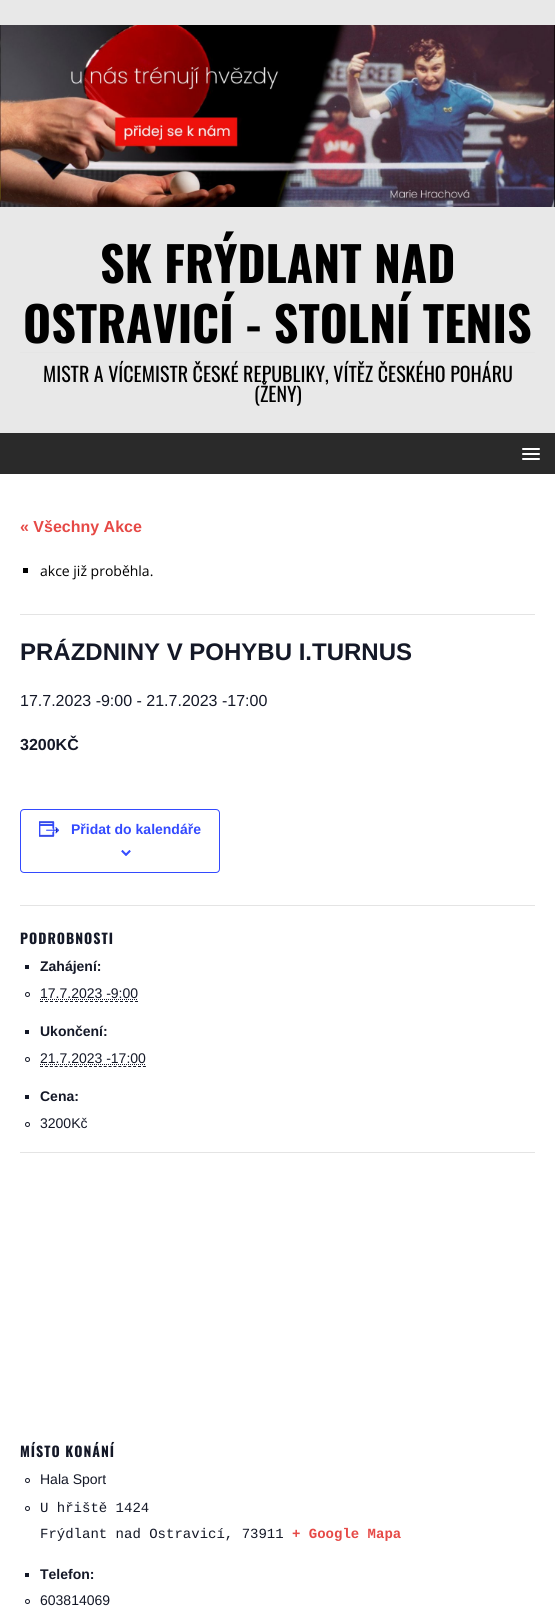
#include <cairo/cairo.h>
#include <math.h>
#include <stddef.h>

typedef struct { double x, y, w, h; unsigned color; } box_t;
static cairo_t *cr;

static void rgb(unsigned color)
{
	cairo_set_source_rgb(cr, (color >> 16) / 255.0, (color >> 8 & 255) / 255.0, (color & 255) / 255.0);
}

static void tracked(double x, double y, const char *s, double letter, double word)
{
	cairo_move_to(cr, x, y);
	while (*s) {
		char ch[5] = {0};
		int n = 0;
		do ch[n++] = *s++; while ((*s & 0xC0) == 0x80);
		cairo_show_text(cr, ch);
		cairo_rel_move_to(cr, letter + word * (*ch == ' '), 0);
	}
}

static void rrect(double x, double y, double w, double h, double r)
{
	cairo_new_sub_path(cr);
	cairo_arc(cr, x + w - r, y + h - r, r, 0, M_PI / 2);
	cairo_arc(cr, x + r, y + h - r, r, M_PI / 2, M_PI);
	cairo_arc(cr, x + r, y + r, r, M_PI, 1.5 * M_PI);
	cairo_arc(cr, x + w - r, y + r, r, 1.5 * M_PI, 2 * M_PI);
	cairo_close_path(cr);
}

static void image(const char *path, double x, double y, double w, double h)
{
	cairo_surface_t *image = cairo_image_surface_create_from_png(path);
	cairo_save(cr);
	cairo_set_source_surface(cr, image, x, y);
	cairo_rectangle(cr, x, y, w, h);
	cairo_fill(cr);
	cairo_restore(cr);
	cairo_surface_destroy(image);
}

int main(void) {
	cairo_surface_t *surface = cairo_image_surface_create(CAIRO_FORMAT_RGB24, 555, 1619);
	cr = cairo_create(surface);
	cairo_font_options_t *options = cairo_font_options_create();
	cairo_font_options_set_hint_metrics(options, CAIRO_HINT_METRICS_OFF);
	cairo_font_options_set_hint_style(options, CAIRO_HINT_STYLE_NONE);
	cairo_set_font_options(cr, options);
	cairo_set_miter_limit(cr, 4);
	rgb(0xe8e8e8);
	cairo_paint(cr);
	image("img/1.png", 0, 25, 555, 182);
	rgb(0xe5e5e5);
	cairo_rectangle(cr, 20, 352, 515, 1);
	cairo_fill(cr);
	rgb(0x2a2a2a);
	cairo_rectangle(cr, 0, 433, 555, 41);
	cairo_fill(cr);
	rgb(0xffffff);
	rrect(522, 448, 18, 2, 1);
	cairo_fill(cr);
	rrect(522, 453, 18, 2, 1);
	cairo_fill(cr);
	rrect(522, 458, 18, 2, 1);
	cairo_fill(cr);
	{
		static const box_t items[] = {
			{0, 474, 555, 1145, 0xffffff},
			{20, 614, 515, 1, 0xe4e4e4},
			{23, 568, 5, 5, 0x000000},
		};
		for (size_t i = 0; i < sizeof items / sizeof *items; i++) {
			rgb(items[i].color);
			cairo_rectangle(cr, items[i].x, items[i].y, items[i].w, items[i].h);
			cairo_fill(cr);
		}
	}
	rrect(20.5, 809.5, 199, 63, 3.5);
	rgb(0x334aff);
	cairo_set_line_width(cr, 1);
	cairo_stroke(cr);
	image("img/2.png", 39, 821, 21, 16);
	image("img/3.png", 121, 850, 10, 6);
	rgb(0xe4e4e4);
	cairo_rectangle(cr, 20, 905, 515, 1);
	cairo_fill(cr);
	rgb(0x141827);
	cairo_rectangle(cr, 25, 965, 4, 4);
	cairo_fill(cr);
	cairo_arc(cr, 27.5, 994.5, 2, 0, 2 * M_PI);
	cairo_stroke(cr);
	cairo_new_path(cr);
	cairo_move_to(cr, 40, 1001.5);
	cairo_line_to(cr, 138, 1001.5);
	cairo_set_dash(cr, (double[]){3, 2}, 2, 0);
	cairo_stroke(cr);
	cairo_new_path(cr);
	cairo_move_to(cr, 40, 999.5);
	cairo_line_to(cr, 106, 999.5);
	cairo_set_dash(cr, (double[]){1, 1}, 2, 0);
	cairo_stroke(cr);
	cairo_new_path(cr);
	cairo_move_to(cr, 106, 999.5);
	cairo_line_to(cr, 138, 999.5);
	cairo_stroke(cr);
	cairo_rectangle(cr, 25, 1030, 4, 4);
	cairo_fill(cr);
	cairo_arc(cr, 27.5, 1059.5, 2, 0, 2 * M_PI);
	cairo_set_dash(cr, NULL, 0, 0);
	cairo_stroke(cr);
	cairo_new_path(cr);
	cairo_move_to(cr, 40, 1066.5);
	cairo_line_to(cr, 146, 1066.5);
	cairo_set_dash(cr, (double[]){3, 1.9}, 2, 0);
	cairo_stroke(cr);
	cairo_new_path(cr);
	cairo_move_to(cr, 40, 1064.5);
	cairo_line_to(cr, 106, 1064.5);
	cairo_set_dash(cr, (double[]){1, 1}, 2, 0);
	cairo_stroke(cr);
	cairo_new_path(cr);
	cairo_move_to(cr, 106, 1064.5);
	cairo_line_to(cr, 146, 1064.5);
	cairo_stroke(cr);
	cairo_rectangle(cr, 25, 1095, 4, 4);
	cairo_fill(cr);
	cairo_arc(cr, 27.5, 1124.5, 2, 0, 2 * M_PI);
	cairo_set_dash(cr, NULL, 0, 0);
	cairo_stroke(cr);
	rgb(0xe4e4e4);
	cairo_rectangle(cr, 20, 1152, 515, 1);
	cairo_fill(cr);
	cairo_arc(cr, 27.5, 1480.5, 2, 0, 2 * M_PI);
	rgb(0x141827);
	cairo_stroke(cr);
	cairo_arc(cr, 27.5, 1508.5, 2, 0, 2 * M_PI);
	cairo_stroke(cr);
	cairo_rectangle(cr, 25, 1573, 4, 4);
	cairo_fill(cr);
	cairo_arc(cr, 27.5, 1601.5, 2, 0, 2 * M_PI);
	cairo_stroke(cr);
	cairo_select_font_face(cr, "Oswald", CAIRO_FONT_SLANT_NORMAL, CAIRO_FONT_WEIGHT_BOLD);
	cairo_set_font_size(cr, 48);
	rgb(0x000000);
	cairo_move_to(cr, 100, 283);
	cairo_show_text(cr, "SK FRÝDLANT NAD");
	cairo_move_to(cr, 23, 343);
	cairo_show_text(cr, "OSTRAVICÍ - STOLNÍ TENIS");
	cairo_select_font_face(cr, "Oswald", CAIRO_FONT_SLANT_NORMAL, CAIRO_FONT_WEIGHT_NORMAL);
	cairo_set_font_size(cr, 20);
	cairo_move_to(cr, 43, 382);
	cairo_show_text(cr, "MISTR A VÍCEMISTR ČESKÉ REPUBLIKY, VÍTĚZ ČESKÉHO POHÁRU");
	cairo_move_to(cr, 254, 402);
	cairo_show_text(cr, "(ŽENY)");
	cairo_select_font_face(cr, "Liberation Sans", CAIRO_FONT_SLANT_NORMAL, CAIRO_FONT_WEIGHT_BOLD);
	cairo_set_font_size(cr, 16);
	rgb(0xe64946);
	cairo_move_to(cr, 20, 532);
	cairo_show_text(cr, "« Všechny Akce");
	cairo_select_font_face(cr, "Open Sans", CAIRO_FONT_SLANT_NORMAL, CAIRO_FONT_WEIGHT_NORMAL);
	cairo_set_font_size(cr, 14);
	rgb(0x000000);
	cairo_move_to(cr, 40, 576);
	cairo_show_text(cr, "akce již proběhla.");
	cairo_select_font_face(cr, "Liberation Sans", CAIRO_FONT_SLANT_NORMAL, CAIRO_FONT_WEIGHT_BOLD);
	cairo_set_font_size(cr, 24);
	rgb(0x141827);
	cairo_move_to(cr, 20, 660);
	cairo_show_text(cr, "PRÁZDNINY V POHYBU I.TURNUS");
	cairo_select_font_face(cr, "Liberation Sans", CAIRO_FONT_SLANT_NORMAL, CAIRO_FONT_WEIGHT_NORMAL);
	cairo_set_font_size(cr, 16);
	cairo_move_to(cr, 20, 706);
	cairo_show_text(cr, "17.7.2023 -9:00 - 21.7.2023 -17:00");
	cairo_select_font_face(cr, "Liberation Sans", CAIRO_FONT_SLANT_NORMAL, CAIRO_FONT_WEIGHT_BOLD);
	cairo_move_to(cr, 20, 750);
	cairo_show_text(cr, "3200KČ");
	cairo_set_font_size(cr, 14);
	rgb(0x334aff);
	cairo_move_to(cr, 71, 834);
	cairo_show_text(cr, "Přidat do kalendáře");
	cairo_select_font_face(cr, "Oswald", CAIRO_FONT_SLANT_NORMAL, CAIRO_FONT_WEIGHT_BOLD);
	rgb(0x141827);
	tracked(20, 944, "PODROBNOSTI", 1, 0);
	cairo_select_font_face(cr, "Liberation Sans", CAIRO_FONT_SLANT_NORMAL, CAIRO_FONT_WEIGHT_BOLD);
	cairo_move_to(cr, 40, 971);
	cairo_show_text(cr, "Zahájení:");
	cairo_select_font_face(cr, "Liberation Sans", CAIRO_FONT_SLANT_NORMAL, CAIRO_FONT_WEIGHT_NORMAL);
	cairo_move_to(cr, 40, 998);
	cairo_show_text(cr, "17.7.2023 -9:00");
	cairo_select_font_face(cr, "Liberation Sans", CAIRO_FONT_SLANT_NORMAL, CAIRO_FONT_WEIGHT_BOLD);
	cairo_move_to(cr, 40, 1036);
	cairo_show_text(cr, "Ukončení:");
	cairo_select_font_face(cr, "Liberation Sans", CAIRO_FONT_SLANT_NORMAL, CAIRO_FONT_WEIGHT_NORMAL);
	cairo_move_to(cr, 40, 1063);
	cairo_show_text(cr, "21.7.2023 -17:00");
	cairo_select_font_face(cr, "Liberation Sans", CAIRO_FONT_SLANT_NORMAL, CAIRO_FONT_WEIGHT_BOLD);
	cairo_move_to(cr, 40, 1101);
	cairo_show_text(cr, "Cena:");
	cairo_select_font_face(cr, "Liberation Sans", CAIRO_FONT_SLANT_NORMAL, CAIRO_FONT_WEIGHT_NORMAL);
	cairo_move_to(cr, 40, 1128);
	cairo_show_text(cr, "3200Kč");
	cairo_select_font_face(cr, "Oswald", CAIRO_FONT_SLANT_NORMAL, CAIRO_FONT_WEIGHT_BOLD);
	tracked(20, 1457, "MÍSTO KONÁNÍ", 1, 0);
	cairo_select_font_face(cr, "Liberation Sans", CAIRO_FONT_SLANT_NORMAL, CAIRO_FONT_WEIGHT_NORMAL);
	cairo_move_to(cr, 40, 1484);
	cairo_show_text(cr, "Hala Sport");
	cairo_select_font_face(cr, "Liberation Mono", CAIRO_FONT_SLANT_NORMAL, CAIRO_FONT_WEIGHT_NORMAL);
	cairo_move_to(cr, 40, 1512);
	cairo_show_text(cr, "U hřiště 1424");
	cairo_move_to(cr, 40, 1538);
	cairo_show_text(cr, "Frýdlant nad Ostravicí, 73911");
	cairo_select_font_face(cr, "Liberation Mono", CAIRO_FONT_SLANT_NORMAL, CAIRO_FONT_WEIGHT_BOLD);
	rgb(0xe64946);
	cairo_move_to(cr, 292, 1538);
	cairo_show_text(cr, "+ Google Mapa");
	cairo_select_font_face(cr, "Liberation Sans", CAIRO_FONT_SLANT_NORMAL, CAIRO_FONT_WEIGHT_BOLD);
	rgb(0x141827);
	cairo_move_to(cr, 40, 1579);
	cairo_show_text(cr, "Telefon:");
	cairo_select_font_face(cr, "Liberation Sans", CAIRO_FONT_SLANT_NORMAL, CAIRO_FONT_WEIGHT_NORMAL);
	cairo_move_to(cr, 40, 1605);
	cairo_show_text(cr, "603814069");
	cairo_surface_write_to_png(surface, "page.png");
	cairo_font_options_destroy(options);
	cairo_destroy(cr);
	cairo_surface_destroy(surface);
	return 0;
}
